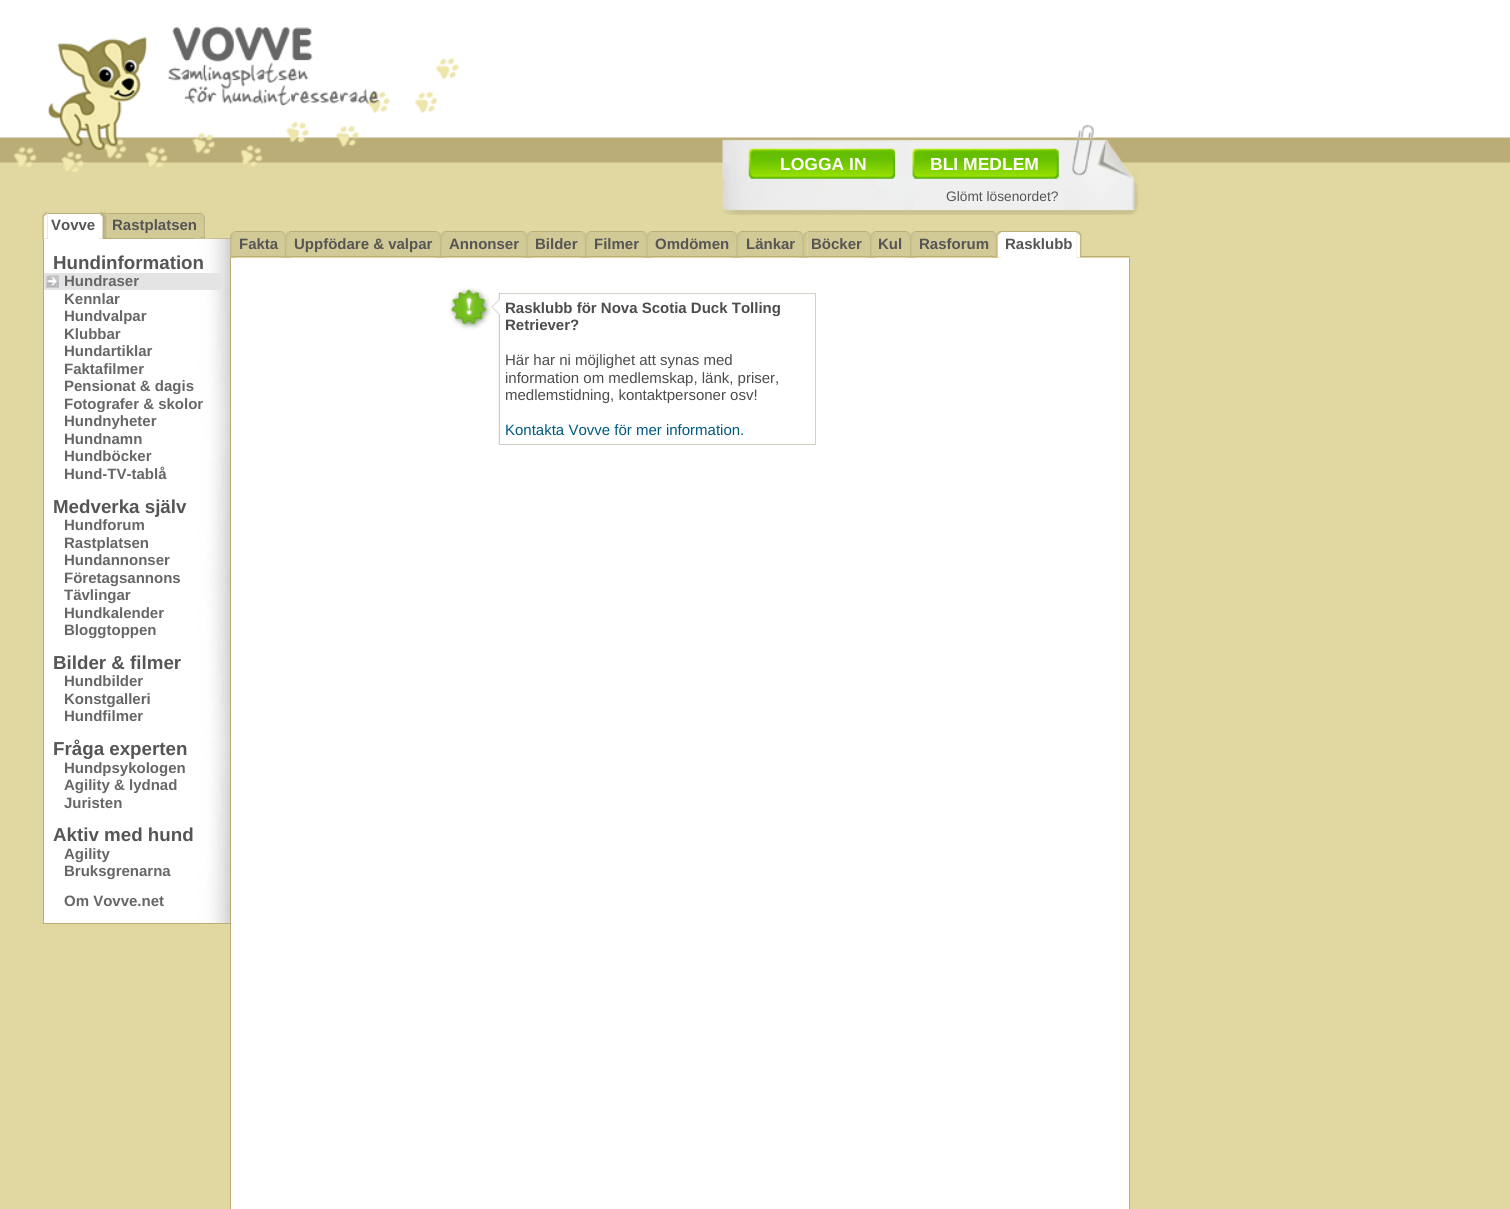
#include <cairo/cairo.h>
#include <math.h>
#include <stddef.h>

typedef struct { double x, y; const char *s; } line_t;
typedef struct { double x, y, w, h; unsigned color; } box_t;
static cairo_t *cr;

static void rgb(unsigned color)
{
	cairo_set_source_rgb(cr, (color >> 16) / 255.0, (color >> 8 & 255) / 255.0, (color & 255) / 255.0);
}

static void image(const char *path, double x, double y, double w, double h)
{
	cairo_surface_t *image = cairo_image_surface_create_from_png(path);
	cairo_save(cr);
	cairo_set_source_surface(cr, image, x, y);
	cairo_rectangle(cr, x, y, w, h);
	cairo_fill(cr);
	cairo_restore(cr);
	cairo_surface_destroy(image);
}

int main(void) {
	cairo_surface_t *surface = cairo_image_surface_create(CAIRO_FORMAT_RGB24, 1510, 1209);
	cr = cairo_create(surface);
	cairo_font_options_t *options = cairo_font_options_create();
	cairo_font_options_set_hint_metrics(options, CAIRO_HINT_METRICS_OFF);
	cairo_font_options_set_hint_style(options, CAIRO_HINT_STYLE_NONE);
	cairo_set_font_options(cr, options);
	cairo_set_miter_limit(cr, 4);
	rgb(0xe0d8a0);
	cairo_paint(cr);
	image("img/1.png", 0, 0, 1510, 173);
	image("img/2.png", 48, 37, 99, 113);
	image("img/3.png", 168, 26, 211, 80);
	image("img/4.png", 722, 125, 417, 90);
	image("img/5.png", 748, 148, 147, 31);
	image("img/6.png", 912, 148, 147, 31);
	rgb(0xbbad77);
	cairo_rectangle(cr, 43, 238, 187, 1);
	cairo_fill(cr);
	image("img/7.png", 42, 212, 6, 27);
	rgb(0xffffff);
	cairo_rectangle(cr, 48, 214, 51, 25);
	cairo_fill(cr);
	rgb(0xbbad77);
	cairo_rectangle(cr, 48, 213, 51, 1);
	cairo_fill(cr);
	image("img/8.png", 98, 212, 10, 27);
	rgb(0xd2ca96);
	cairo_rectangle(cr, 108, 214, 92, 24);
	cairo_fill(cr);
	rgb(0xbbad77);
	cairo_rectangle(cr, 108, 213, 92, 1);
	cairo_fill(cr);
	image("img/9.png", 200, 212, 5, 26);
	rgb(0xffffff);
	cairo_rectangle(cr, 44, 239, 150, 684);
	cairo_fill(cr);
	image("img/10.png", 193, 238, 39, 685);
	{
		static const box_t items[] = {
			{43, 923, 188, 1, 0xbbad77},
			{43, 239, 1, 685, 0xbbad77},
			{44, 273, 178, 17, 0xe4e4e4},
		};
		for (size_t i = 0; i < sizeof items / sizeof *items; i++) {
			rgb(items[i].color);
			cairo_rectangle(cr, items[i].x, items[i].y, items[i].w, items[i].h);
			cairo_fill(cr);
		}
	}
	image("img/11.png", 46, 275, 13, 13);
	rgb(0xbbad77);
	cairo_rectangle(cr, 230, 256, 900, 1);
	cairo_fill(cr);
	image("img/12.png", 230, 231, 5, 27);
	rgb(0xd2ca96);
	cairo_rectangle(cr, 235, 232, 46, 24);
	cairo_fill(cr);
	rgb(0xbbad77);
	cairo_rectangle(cr, 235, 231, 46, 1);
	cairo_fill(cr);
	image("img/13.png", 281, 231, 9, 27);
	rgb(0xd2ca96);
	cairo_rectangle(cr, 290, 232, 146, 24);
	cairo_fill(cr);
	rgb(0xbbad77);
	cairo_rectangle(cr, 290, 231, 146, 1);
	cairo_fill(cr);
	image("img/13.png", 436, 231, 9, 27);
	rgb(0xd2ca96);
	cairo_rectangle(cr, 445, 232, 78, 24);
	cairo_fill(cr);
	rgb(0xbbad77);
	cairo_rectangle(cr, 445, 231, 78, 1);
	cairo_fill(cr);
	image("img/14.png", 522, 231, 10, 27);
	rgb(0xd2ca96);
	cairo_rectangle(cr, 531, 232, 50, 24);
	cairo_fill(cr);
	rgb(0xbbad77);
	cairo_rectangle(cr, 531, 231, 50, 1);
	cairo_fill(cr);
	image("img/13.png", 581, 231, 9, 27);
	rgb(0xd2ca96);
	cairo_rectangle(cr, 590, 232, 53, 24);
	cairo_fill(cr);
	rgb(0xbbad77);
	cairo_rectangle(cr, 590, 231, 53, 1);
	cairo_fill(cr);
	image("img/14.png", 642, 231, 10, 27);
	rgb(0xd2ca96);
	cairo_rectangle(cr, 651, 232, 82, 24);
	cairo_fill(cr);
	rgb(0xbbad77);
	cairo_rectangle(cr, 651, 231, 82, 1);
	cairo_fill(cr);
	image("img/14.png", 732, 231, 10, 27);
	rgb(0xd2ca96);
	cairo_rectangle(cr, 741, 232, 58, 24);
	cairo_fill(cr);
	rgb(0xbbad77);
	cairo_rectangle(cr, 741, 231, 58, 1);
	cairo_fill(cr);
	image("img/15.png", 798, 231, 10, 27);
	rgb(0xd2ca96);
	cairo_rectangle(cr, 808, 232, 58, 24);
	cairo_fill(cr);
	rgb(0xbbad77);
	cairo_rectangle(cr, 808, 231, 58, 1);
	cairo_fill(cr);
	image("img/13.png", 866, 231, 9, 27);
	rgb(0xd2ca96);
	cairo_rectangle(cr, 875, 232, 31, 24);
	cairo_fill(cr);
	rgb(0xbbad77);
	cairo_rectangle(cr, 875, 231, 31, 1);
	cairo_fill(cr);
	image("img/13.png", 906, 231, 9, 27);
	rgb(0xd2ca96);
	cairo_rectangle(cr, 915, 232, 78, 24);
	cairo_fill(cr);
	rgb(0xbbad77);
	cairo_rectangle(cr, 915, 231, 78, 1);
	cairo_fill(cr);
	image("img/16.png", 992, 231, 9, 27);
	rgb(0xffffff);
	cairo_rectangle(cr, 1001, 232, 75, 26);
	cairo_fill(cr);
	rgb(0xbbad77);
	cairo_rectangle(cr, 1001, 231, 75, 1);
	cairo_fill(cr);
	image("img/17.png", 1076, 231, 6, 27);
	{
		static const box_t items[] = {
			{231, 258, 898, 951, 0xffffff},
			{1129, 258, 1, 951, 0xbbad77},
			{230, 258, 1, 951, 0xbbad77},
		};
		for (size_t i = 0; i < sizeof items / sizeof *items; i++) {
			rgb(items[i].color);
			cairo_rectangle(cr, items[i].x, items[i].y, items[i].w, items[i].h);
			cairo_fill(cr);
		}
	}
	image("img/18.png", 449, 287, 42, 43);
	image("img/19.png", 491, 292, 9, 153);
	{
		static const box_t items[] = {
			{500, 293, 316, 1, 0xd4d0c8},
			{815, 293, 1, 152, 0xd4d0c8},
			{500, 444, 316, 1, 0xd4d0c8},
		};
		for (size_t i = 0; i < sizeof items / sizeof *items; i++) {
			rgb(items[i].color);
			cairo_rectangle(cr, items[i].x, items[i].y, items[i].w, items[i].h);
			cairo_fill(cr);
		}
	}
	cairo_select_font_face(cr, "Liberation Sans", CAIRO_FONT_SLANT_NORMAL, CAIRO_FONT_WEIGHT_BOLD);
	cairo_set_font_size(cr, 17.5);
	rgb(0xffffff);
	cairo_move_to(cr, 780, 170);
	cairo_show_text(cr, "LOGGA IN");
	cairo_move_to(cr, 930, 170);
	cairo_show_text(cr, "BLI MEDLEM");
	cairo_select_font_face(cr, "Liberation Sans", CAIRO_FONT_SLANT_NORMAL, CAIRO_FONT_WEIGHT_NORMAL);
	cairo_set_font_size(cr, 13.75);
	rgb(0x555555);
	cairo_move_to(cr, 946, 201);
	cairo_show_text(cr, "Glömt lösenordet?");
	cairo_select_font_face(cr, "Liberation Sans", CAIRO_FONT_SLANT_NORMAL, CAIRO_FONT_WEIGHT_BOLD);
	cairo_set_font_size(cr, 15);
	cairo_move_to(cr, 51, 230);
	cairo_show_text(cr, "Vovve");
	cairo_move_to(cr, 112, 230);
	cairo_show_text(cr, "Rastplatsen");
	cairo_set_font_size(cr, 18.75);
	cairo_move_to(cr, 53, 269);
	cairo_show_text(cr, "Hundinformation");
	cairo_set_font_size(cr, 15);
	rgb(0x666666);
	{
		static const line_t items[] = {
			{64, 286, "Hundraser"},
			{64, 304, "Kennlar"},
			{64, 321, "Hundvalpar"},
			{64, 339, "Klubbar"},
			{64, 356, "Hundartiklar"},
			{64, 374, "Faktafilmer"},
			{64, 391, "Pensionat & dagis"},
			{64, 409, "Fotografer & skolor"},
			{64, 426, "Hundnyheter"},
			{64, 444, "Hundnamn"},
			{64, 461, "Hundböcker"},
			{64, 479, "Hund-TV-tablå"},
		};
		for (size_t i = 0; i < sizeof items / sizeof *items; i++) {
			cairo_move_to(cr, items[i].x, items[i].y);
			cairo_show_text(cr, items[i].s);
		}
	}
	cairo_set_font_size(cr, 18.75);
	rgb(0x555555);
	cairo_move_to(cr, 53, 513);
	cairo_show_text(cr, "Medverka själv");
	cairo_set_font_size(cr, 15);
	rgb(0x666666);
	{
		static const line_t items[] = {
			{64, 530, "Hundforum"},
			{64, 548, "Rastplatsen"},
			{64, 565, "Hundannonser"},
			{64, 583, "Företagsannons"},
			{64, 600, "Tävlingar"},
			{64, 618, "Hundkalender"},
			{64, 635, "Bloggtoppen"},
		};
		for (size_t i = 0; i < sizeof items / sizeof *items; i++) {
			cairo_move_to(cr, items[i].x, items[i].y);
			cairo_show_text(cr, items[i].s);
		}
	}
	cairo_set_font_size(cr, 18.75);
	rgb(0x555555);
	cairo_move_to(cr, 53, 669);
	cairo_show_text(cr, "Bilder & filmer");
	cairo_set_font_size(cr, 15);
	rgb(0x666666);
	{
		static const line_t items[] = {
			{64, 686, "Hundbilder"},
			{64, 704, "Konstgalleri"},
			{64, 721, "Hundfilmer"},
		};
		for (size_t i = 0; i < sizeof items / sizeof *items; i++) {
			cairo_move_to(cr, items[i].x, items[i].y);
			cairo_show_text(cr, items[i].s);
		}
	}
	cairo_set_font_size(cr, 18.75);
	rgb(0x555555);
	cairo_move_to(cr, 53, 755);
	cairo_show_text(cr, "Fråga experten");
	cairo_set_font_size(cr, 15);
	rgb(0x666666);
	{
		static const line_t items[] = {
			{64, 773, "Hundpsykologen"},
			{64, 790, "Agility & lydnad"},
			{64, 808, "Juristen"},
		};
		for (size_t i = 0; i < sizeof items / sizeof *items; i++) {
			cairo_move_to(cr, items[i].x, items[i].y);
			cairo_show_text(cr, items[i].s);
		}
	}
	cairo_set_font_size(cr, 18.75);
	rgb(0x555555);
	cairo_move_to(cr, 53, 841);
	cairo_show_text(cr, "Aktiv med hund");
	cairo_set_font_size(cr, 15);
	rgb(0x666666);
	{
		static const line_t items[] = {
			{64, 859, "Agility"},
			{64, 876, "Bruksgrenarna"},
			{64, 906, "Om Vovve.net"},
		};
		for (size_t i = 0; i < sizeof items / sizeof *items; i++) {
			cairo_move_to(cr, items[i].x, items[i].y);
			cairo_show_text(cr, items[i].s);
		}
	}
	rgb(0x555555);
	{
		static const line_t items[] = {
			{239, 249, "Fakta"},
			{294, 249, "Uppfödare & valpar"},
			{449, 249, "Annonser"},
			{535, 249, "Bilder"},
			{594, 249, "Filmer"},
			{655, 249, "Omdömen"},
			{746, 249, "Länkar"},
			{811, 249, "Böcker"},
			{878, 249, "Kul"},
			{919, 249, "Rasforum"},
			{1005, 249, "Rasklubb"},
		};
		for (size_t i = 0; i < sizeof items / sizeof *items; i++) {
			cairo_move_to(cr, items[i].x, items[i].y);
			cairo_show_text(cr, items[i].s);
		}
	}
	rgb(0x4c4c4c);
	cairo_move_to(cr, 505, 313);
	cairo_show_text(cr, "Rasklubb för Nova Scotia Duck Tolling");
	cairo_move_to(cr, 505, 330);
	cairo_show_text(cr, "Retriever?");
	cairo_select_font_face(cr, "Liberation Sans", CAIRO_FONT_SLANT_NORMAL, CAIRO_FONT_WEIGHT_NORMAL);
	{
		static const line_t items[] = {
			{505, 365, "Här har ni möjlighet att synas med"},
			{505, 383, "information om medlemskap, länk, priser,"},
			{505, 400, "medlemstidning, kontaktpersoner osv!"},
		};
		for (size_t i = 0; i < sizeof items / sizeof *items; i++) {
			cairo_move_to(cr, items[i].x, items[i].y);
			cairo_show_text(cr, items[i].s);
		}
	}
	rgb(0x00587d);
	cairo_move_to(cr, 505, 435);
	cairo_show_text(cr, "Kontakta Vovve för mer information.");
	cairo_surface_write_to_png(surface, "page.png");
	cairo_font_options_destroy(options);
	cairo_destroy(cr);
	cairo_surface_destroy(surface);
	return 0;
}
